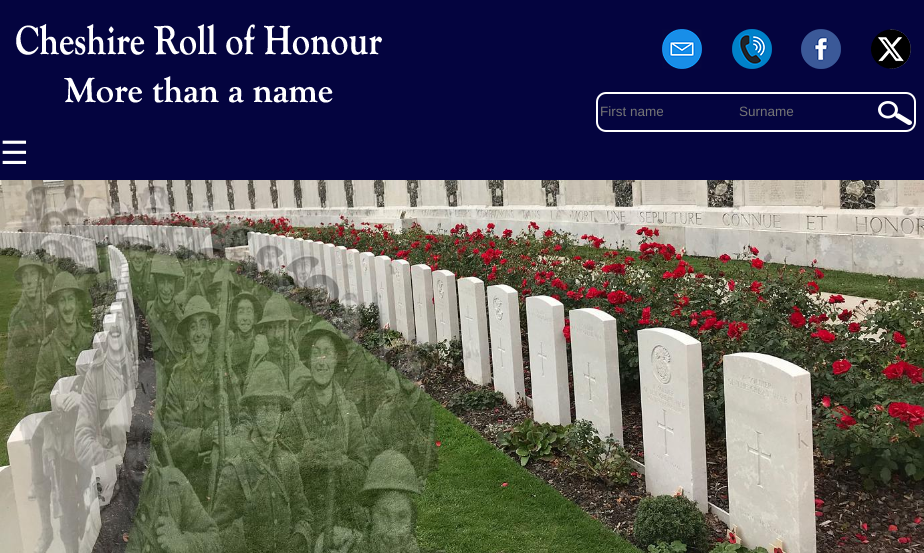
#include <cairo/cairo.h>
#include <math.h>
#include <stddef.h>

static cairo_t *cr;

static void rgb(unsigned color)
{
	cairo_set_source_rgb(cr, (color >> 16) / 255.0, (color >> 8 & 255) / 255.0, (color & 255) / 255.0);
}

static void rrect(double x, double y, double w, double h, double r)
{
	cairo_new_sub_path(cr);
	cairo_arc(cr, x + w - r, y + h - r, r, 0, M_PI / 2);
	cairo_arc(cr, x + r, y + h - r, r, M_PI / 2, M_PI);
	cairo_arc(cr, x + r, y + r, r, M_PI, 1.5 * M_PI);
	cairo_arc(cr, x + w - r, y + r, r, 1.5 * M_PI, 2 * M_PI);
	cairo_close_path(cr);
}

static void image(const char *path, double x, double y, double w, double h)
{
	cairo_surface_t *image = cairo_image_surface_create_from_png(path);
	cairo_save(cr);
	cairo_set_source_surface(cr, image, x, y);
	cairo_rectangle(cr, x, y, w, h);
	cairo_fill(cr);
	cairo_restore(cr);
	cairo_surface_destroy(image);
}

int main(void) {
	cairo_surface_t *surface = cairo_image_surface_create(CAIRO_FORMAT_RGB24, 924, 553);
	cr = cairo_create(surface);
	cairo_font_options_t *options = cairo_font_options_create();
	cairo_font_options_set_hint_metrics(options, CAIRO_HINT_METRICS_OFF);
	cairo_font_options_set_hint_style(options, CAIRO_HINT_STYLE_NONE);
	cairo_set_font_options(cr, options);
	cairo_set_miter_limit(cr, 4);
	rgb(0x04043f);
	cairo_paint(cr);
	image("img/1.png", 16, 24, 366, 79);
	image("img/2.png", 662, 29, 40, 40);
	image("img/3.png", 732, 29, 40, 40);
	image("img/4.png", 801, 29, 40, 40);
	image("img/5.png", 871, 29, 40, 40);
	rrect(597, 93, 318, 38, 9);
	rgb(0xffffff);
	cairo_stroke(cr);
	image("img/6.png", 878, 101, 34, 24);
	image("img/7.png", 0, 180, 924, 373);
	cairo_select_font_face(cr, "Liberation Sans", CAIRO_FONT_SLANT_NORMAL, CAIRO_FONT_WEIGHT_NORMAL);
	cairo_set_font_size(cr, 13.5);
	rgb(0x757575);
	cairo_move_to(cr, 600, 116);
	cairo_show_text(cr, "First name");
	cairo_move_to(cr, 739, 116);
	cairo_show_text(cr, "Surname");
	cairo_select_font_face(cr, "DejaVu Sans", CAIRO_FONT_SLANT_NORMAL, CAIRO_FONT_WEIGHT_NORMAL);
	cairo_set_font_size(cr, 32);
	rgb(0xffffff);
	cairo_move_to(cr, 0, 164);
	cairo_show_text(cr, "☰");
	cairo_surface_write_to_png(surface, "page.png");
	cairo_font_options_destroy(options);
	cairo_destroy(cr);
	cairo_surface_destroy(surface);
	return 0;
}
